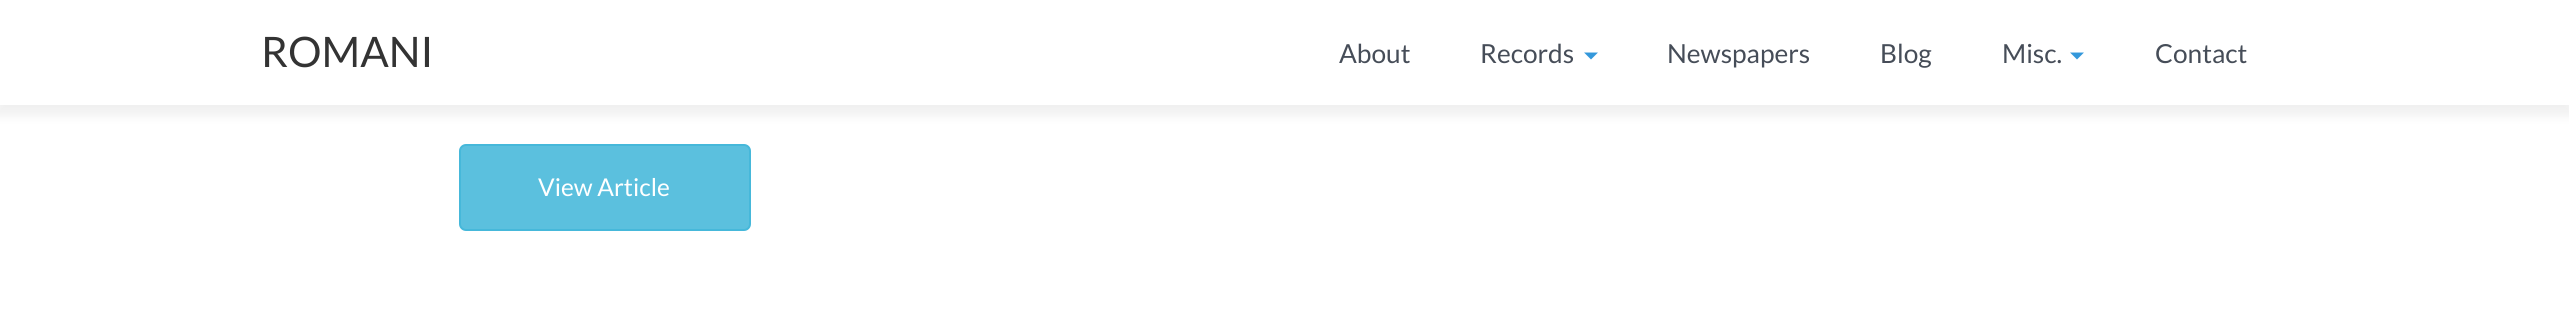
#include <cairo/cairo.h>
#include <math.h>
#include <stddef.h>

typedef struct { double x, y; const char *s; } line_t;
static cairo_t *cr;

static void rgb(unsigned color)
{
	cairo_set_source_rgb(cr, (color >> 16) / 255.0, (color >> 8 & 255) / 255.0, (color & 255) / 255.0);
}

static void rrect(double x, double y, double w, double h, double r)
{
	cairo_new_sub_path(cr);
	cairo_arc(cr, x + w - r, y + h - r, r, 0, M_PI / 2);
	cairo_arc(cr, x + r, y + h - r, r, M_PI / 2, M_PI);
	cairo_arc(cr, x + r, y + r, r, M_PI, 1.5 * M_PI);
	cairo_arc(cr, x + w - r, y + r, r, 1.5 * M_PI, 2 * M_PI);
	cairo_close_path(cr);
}

static void soft_shadow(double x, double y, double w, double h, double r, double blur, double alpha)
{
	cairo_push_group_with_content(cr, CAIRO_CONTENT_ALPHA);
	cairo_set_operator(cr, CAIRO_OPERATOR_SOURCE);
	for (int i = 15; i >= -15 && fmin(w, h) + blur * i / 3 > 0; i -= 2) {
		double e = blur * i / 6;
		cairo_set_source_rgba(cr, 0, 0, 0, alpha * erfc((i - 1) / 8.5) / 2);
		rrect(x - e, y - e, w + 2 * e, h + 2 * e, fmax(0, fmin(r + e + blur * .6, fmin(w, h) / 2 + e)));
		cairo_fill(cr);
	}
	cairo_pattern_t *soft = cairo_pop_group(cr);
	cairo_mask(cr, soft);
	cairo_pattern_destroy(soft);
}

int main(void) {
	cairo_surface_t *surface = cairo_image_surface_create(CAIRO_FORMAT_RGB24, 2569, 328);
	cr = cairo_create(surface);
	cairo_font_options_t *options = cairo_font_options_create();
	cairo_font_options_set_hint_metrics(options, CAIRO_HINT_METRICS_OFF);
	cairo_font_options_set_hint_style(options, CAIRO_HINT_STYLE_NONE);
	cairo_set_font_options(cr, options);
	cairo_set_miter_limit(cr, 4);
	rgb(0xffffff);
	cairo_paint(cr);
	rgb(0x000000);
	soft_shadow(-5, 0, 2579, 116, 0, 5, 0.06);
	rgb(0xffffff);
	cairo_rectangle(cr, 0, 0, 2569, 105);
	cairo_fill(cr);
	rgb(0x3498db);
	cairo_new_path(cr);
	cairo_move_to(cr, 1584, 52.5);
	cairo_line_to(cr, 1598, 52.5);
	cairo_line_to(cr, 1591, 59.5);
	cairo_close_path(cr);
	cairo_fill(cr);
	cairo_new_path(cr);
	cairo_move_to(cr, 2070, 52.5);
	cairo_line_to(cr, 2084, 52.5);
	cairo_line_to(cr, 2077, 59.5);
	cairo_close_path(cr);
	cairo_fill(cr);
	rgb(0x5bc0de);
	rrect(460, 145, 290, 85, 6);
	cairo_fill_preserve(cr);
	rgb(0x46b8da);
	cairo_stroke(cr);
	cairo_select_font_face(cr, "Lato", CAIRO_FONT_SLANT_NORMAL, CAIRO_FONT_WEIGHT_NORMAL);
	cairo_set_font_size(cr, 42);
	rgb(0x333333);
	cairo_move_to(cr, 261, 67);
	cairo_show_text(cr, "ROMANI");
	cairo_set_font_size(cr, 26.25);
	rgb(0x464d58);
	{
		static const line_t items[] = {
			{1339, 63, "About"},
			{1480, 63, "Records"},
			{1667, 63, "Newspapers"},
			{1880, 63, "Blog"},
			{2002, 63, "Misc."},
			{2155, 63, "Contact"},
		};
		for (size_t i = 0; i < sizeof items / sizeof *items; i++) {
			cairo_move_to(cr, items[i].x, items[i].y);
			cairo_show_text(cr, items[i].s);
		}
	}
	cairo_set_font_size(cr, 24.5);
	rgb(0xffffff);
	cairo_move_to(cr, 538, 196);
	cairo_show_text(cr, "View Article");
	cairo_surface_write_to_png(surface, "page.png");
	cairo_font_options_destroy(options);
	cairo_destroy(cr);
	cairo_surface_destroy(surface);
	return 0;
}
